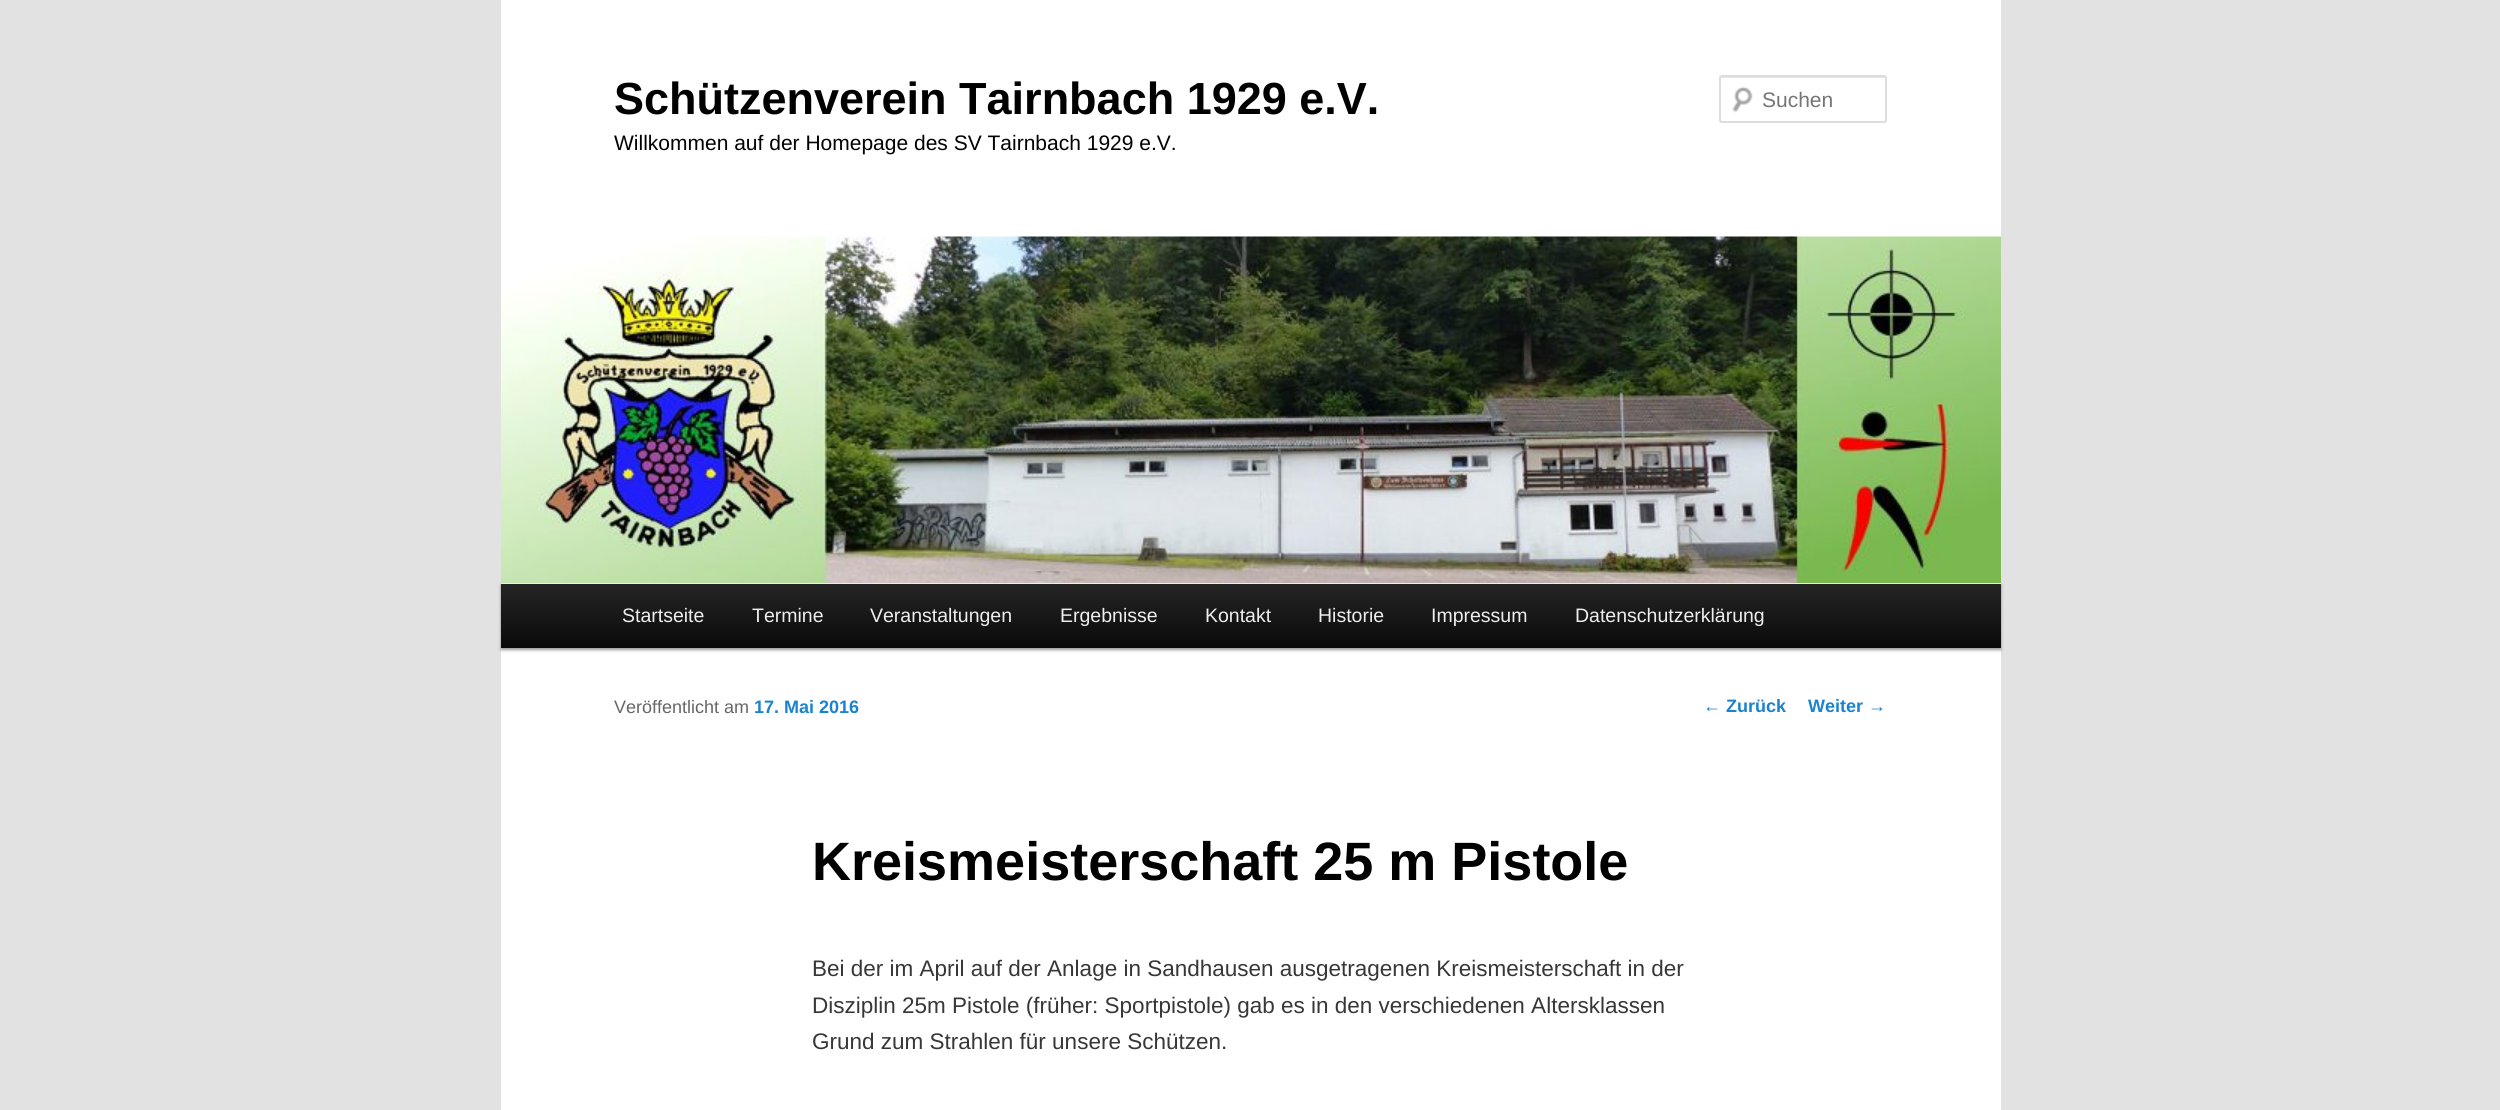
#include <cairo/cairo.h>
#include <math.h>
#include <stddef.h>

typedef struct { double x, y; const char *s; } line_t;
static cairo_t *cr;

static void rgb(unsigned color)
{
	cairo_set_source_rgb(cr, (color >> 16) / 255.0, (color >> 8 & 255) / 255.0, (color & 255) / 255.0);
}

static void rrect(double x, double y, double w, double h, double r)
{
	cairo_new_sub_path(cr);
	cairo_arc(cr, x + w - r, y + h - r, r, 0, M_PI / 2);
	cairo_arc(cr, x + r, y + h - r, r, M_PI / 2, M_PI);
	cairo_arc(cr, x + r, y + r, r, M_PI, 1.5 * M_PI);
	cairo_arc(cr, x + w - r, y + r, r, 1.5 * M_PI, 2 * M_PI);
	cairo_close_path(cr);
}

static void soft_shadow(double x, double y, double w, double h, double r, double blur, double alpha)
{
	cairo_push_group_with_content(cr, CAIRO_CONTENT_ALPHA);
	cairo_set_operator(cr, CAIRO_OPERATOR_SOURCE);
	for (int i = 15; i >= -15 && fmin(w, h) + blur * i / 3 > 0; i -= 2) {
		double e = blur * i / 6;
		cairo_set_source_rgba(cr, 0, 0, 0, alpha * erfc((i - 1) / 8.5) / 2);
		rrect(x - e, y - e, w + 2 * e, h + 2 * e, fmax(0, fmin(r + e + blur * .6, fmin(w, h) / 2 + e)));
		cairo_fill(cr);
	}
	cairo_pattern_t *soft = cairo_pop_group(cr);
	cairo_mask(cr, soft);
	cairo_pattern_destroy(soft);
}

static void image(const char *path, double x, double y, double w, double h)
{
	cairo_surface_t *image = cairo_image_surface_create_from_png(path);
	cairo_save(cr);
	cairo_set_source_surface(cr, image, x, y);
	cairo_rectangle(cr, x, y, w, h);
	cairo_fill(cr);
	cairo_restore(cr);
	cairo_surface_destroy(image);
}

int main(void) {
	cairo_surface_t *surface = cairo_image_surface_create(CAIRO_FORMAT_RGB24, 2500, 1110);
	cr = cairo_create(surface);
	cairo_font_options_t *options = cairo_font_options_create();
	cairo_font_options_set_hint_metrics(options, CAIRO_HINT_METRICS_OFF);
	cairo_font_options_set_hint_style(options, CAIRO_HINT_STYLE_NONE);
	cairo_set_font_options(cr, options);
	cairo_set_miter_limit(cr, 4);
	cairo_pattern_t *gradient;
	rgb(0xe2e2e2);
	cairo_paint(cr);
	rgb(0xffffff);
	cairo_rectangle(cr, 501, 0, 1500, 1110);
	cairo_fill(cr);
	image("img/1.png", 1732, 86, 21, 27);
	rgb(0xe6e6e6);
	cairo_new_path(cr);
	cairo_move_to(cr, 1722, 78);
	cairo_line_to(cr, 1884, 78);
	cairo_curve_to(cr, 1885, 78, 1886, 79, 1886, 80);
	cairo_curve_to(cr, 1886, 79, 1886, 78, 1885, 77);
	cairo_line_to(cr, 1722, 77);
	cairo_line_to(cr, 1721, 78);
	cairo_close_path(cr);
	cairo_fill(cr);
	rrect(1720, 76, 166, 46, 2);
	rgb(0xdddddd);
	cairo_stroke(cr);
	rgb(0x000000);
	soft_shadow(501, 585, 1500, 65, 0, 1.5, 0.4);
	image("img/2.png", 501, 236, 1500, 347);
	gradient = cairo_pattern_create_linear(1251, 583, 1251, 648);
	cairo_pattern_add_color_stop_rgba(gradient, 0, 0.145, 0.145, 0.145, 1);
	cairo_pattern_add_color_stop_rgba(gradient, 1, 0.039, 0.039, 0.039, 1);
	cairo_set_source(cr, gradient);
	cairo_pattern_destroy(gradient);
	cairo_rectangle(cr, 501, 584, 1500, 64);
	cairo_fill(cr);
	cairo_select_font_face(cr, "Liberation Sans", CAIRO_FONT_SLANT_NORMAL, CAIRO_FONT_WEIGHT_BOLD);
	cairo_set_font_size(cr, 45);
	rgb(0x000000);
	cairo_move_to(cr, 614, 114);
	cairo_show_text(cr, "Schützenverein Tairnbach 1929 e.V.");
	cairo_select_font_face(cr, "Liberation Sans", CAIRO_FONT_SLANT_NORMAL, CAIRO_FONT_WEIGHT_NORMAL);
	cairo_set_font_size(cr, 21);
	cairo_move_to(cr, 614, 150);
	cairo_show_text(cr, "Willkommen auf der Homepage des SV Tairnbach 1929 e.V.");
	rgb(0x757575);
	cairo_move_to(cr, 1762, 107);
	cairo_show_text(cr, "Suchen");
	cairo_set_font_size(cr, 19.5);
	rgb(0xeeeeee);
	{
		static const line_t items[] = {
			{622, 622, "Startseite"},
			{752, 622, "Termine"},
			{870, 622, "Veranstaltungen"},
			{1060, 622, "Ergebnisse"},
			{1205, 622, "Kontakt"},
			{1318, 622, "Historie"},
			{1431, 622, "Impressum"},
			{1575, 622, "Datenschutzerklärung"},
		};
		for (size_t i = 0; i < sizeof items / sizeof *items; i++) {
			cairo_move_to(cr, items[i].x, items[i].y);
			cairo_show_text(cr, items[i].s);
		}
	}
	cairo_set_font_size(cr, 18);
	rgb(0x666666);
	cairo_move_to(cr, 614, 713);
	cairo_show_text(cr, "Veröffentlicht am");
	cairo_select_font_face(cr, "Liberation Sans", CAIRO_FONT_SLANT_NORMAL, CAIRO_FONT_WEIGHT_BOLD);
	rgb(0x1982d1);
	cairo_move_to(cr, 754, 713);
	cairo_show_text(cr, "17. Mai 2016");
	cairo_set_font_size(cr, 54);
	rgb(0x000000);
	cairo_move_to(cr, 812, 880);
	cairo_show_text(cr, "Kreismeisterschaft 25 m Pistole");
	cairo_select_font_face(cr, "Liberation Sans", CAIRO_FONT_SLANT_NORMAL, CAIRO_FONT_WEIGHT_NORMAL);
	cairo_set_font_size(cr, 22.5);
	rgb(0x373737);
	{
		static const line_t items[] = {
			{812, 976, "Bei der im April auf der Anlage in Sandhausen ausgetragenen Kreismeisterschaft in der"},
			{812, 1013, "Disziplin 25m Pistole (früher: Sportpistole) gab es in den verschiedenen Altersklassen"},
			{812, 1049, "Grund zum Strahlen für unsere Schützen."},
		};
		for (size_t i = 0; i < sizeof items / sizeof *items; i++) {
			cairo_move_to(cr, items[i].x, items[i].y);
			cairo_show_text(cr, items[i].s);
		}
	}
	cairo_set_font_size(cr, 18);
	rgb(0x1982d1);
	cairo_move_to(cr, 1703, 712);
	cairo_show_text(cr, "←");
	cairo_select_font_face(cr, "Liberation Sans", CAIRO_FONT_SLANT_NORMAL, CAIRO_FONT_WEIGHT_BOLD);
	cairo_move_to(cr, 1726, 712);
	cairo_show_text(cr, "Zurück");
	cairo_move_to(cr, 1808, 712);
	cairo_show_text(cr, "Weiter");
	cairo_select_font_face(cr, "Liberation Sans", CAIRO_FONT_SLANT_NORMAL, CAIRO_FONT_WEIGHT_NORMAL);
	cairo_move_to(cr, 1868, 712);
	cairo_show_text(cr, "→");
	cairo_surface_write_to_png(surface, "page.png");
	cairo_font_options_destroy(options);
	cairo_destroy(cr);
	cairo_surface_destroy(surface);
	return 0;
}
